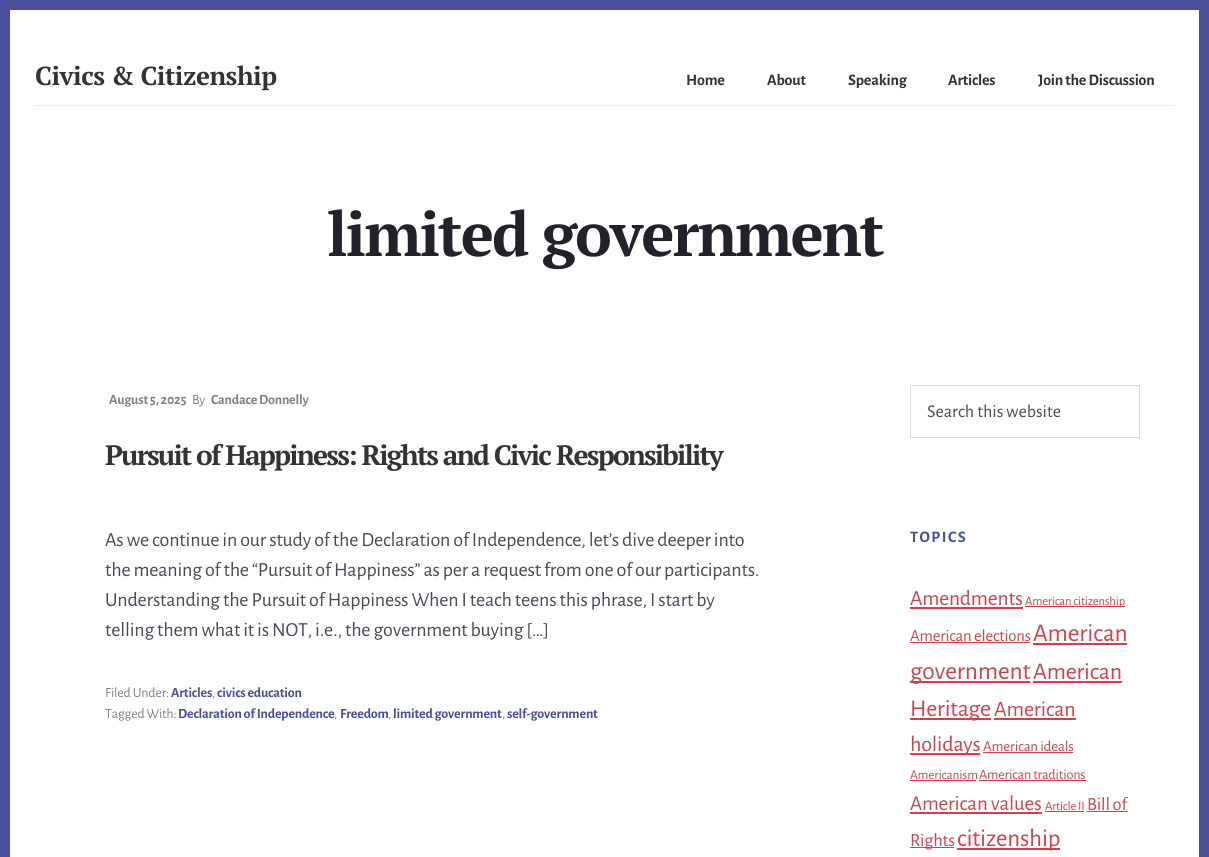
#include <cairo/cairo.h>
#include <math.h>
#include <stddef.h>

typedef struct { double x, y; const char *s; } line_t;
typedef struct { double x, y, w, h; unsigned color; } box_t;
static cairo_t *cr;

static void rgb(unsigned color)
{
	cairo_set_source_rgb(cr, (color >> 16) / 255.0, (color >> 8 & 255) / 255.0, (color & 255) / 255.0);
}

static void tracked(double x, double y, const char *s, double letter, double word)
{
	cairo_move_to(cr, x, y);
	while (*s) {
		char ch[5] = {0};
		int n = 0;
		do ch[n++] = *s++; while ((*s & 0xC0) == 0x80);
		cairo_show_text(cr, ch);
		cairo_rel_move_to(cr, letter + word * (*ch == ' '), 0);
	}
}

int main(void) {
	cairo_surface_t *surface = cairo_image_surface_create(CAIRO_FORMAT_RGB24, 1209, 857);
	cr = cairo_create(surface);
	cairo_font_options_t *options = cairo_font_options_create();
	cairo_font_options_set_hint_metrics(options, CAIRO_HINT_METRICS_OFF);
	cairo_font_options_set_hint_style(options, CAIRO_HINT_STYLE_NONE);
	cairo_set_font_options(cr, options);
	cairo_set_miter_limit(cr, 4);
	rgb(0x4a4f9b);
	cairo_paint(cr);
	rgb(0xffffff);
	cairo_rectangle(cr, 10, 10, 1189, 847);
	cairo_fill(cr);
	rgb(0xedecee);
	cairo_rectangle(cr, 35, 105, 1140, 1);
	cairo_fill(cr);
	cairo_rectangle(cr, 910.5, 385.5, 229, 52);
	rgb(0xdcdadd);
	cairo_set_line_width(cr, 1);
	cairo_stroke(cr);
	{
		static const box_t items[] = {
			{910, 607, 113, 2, 0xd2414b},
			{1025, 606, 100, 1, 0xd2414b},
			{910, 642, 120, 1, 0xd2414b},
			{1033, 643, 94, 2, 0xd2414b},
			{910, 681, 120, 2, 0xd2414b},
			{1033, 681, 89, 2, 0xd2414b},
			{910, 718, 81, 2, 0xd2414b},
			{994, 718, 82, 2, 0xd2414b},
			{910, 753, 70, 2, 0xd2414b},
			{983, 752, 90, 1, 0xd2414b},
			{910, 780, 66, 1, 0xd2414b},
			{979, 780, 107, 1, 0xd2414b},
			{910, 812, 132, 2, 0xd2414b},
			{1045, 811, 39, 1, 0xd2414b},
			{1087, 811, 40, 1, 0xd2414b},
			{910, 847, 44, 1, 0xd2414b},
			{957, 848, 103, 2, 0xd2414b},
		};
		for (size_t i = 0; i < sizeof items / sizeof *items; i++) {
			rgb(items[i].color);
			cairo_rectangle(cr, items[i].x, items[i].y, items[i].w, items[i].h);
			cairo_fill(cr);
		}
	}
	cairo_select_font_face(cr, "PT Serif", CAIRO_FONT_SLANT_NORMAL, CAIRO_FONT_WEIGHT_BOLD);
	cairo_set_font_size(cr, 26);
	rgb(0x333333);
	tracked(35, 85, "Civics & Citizenship", -0.5, 0);
	cairo_select_font_face(cr, "Alegreya Sans", CAIRO_FONT_SLANT_NORMAL, CAIRO_FONT_WEIGHT_BOLD);
	cairo_set_font_size(cr, 16);
	{
		static const line_t items[] = {
			{686, 85, "Home"},
			{767, 85, "About"},
			{848, 85, "Speaking"},
			{948, 85, "Articles"},
			{1038, 85, "Join the Discussion"},
		};
		for (size_t i = 0; i < sizeof items / sizeof *items; i++) {
			tracked(items[i].x, items[i].y, items[i].s, -0.2, 0);
		}
	}
	cairo_select_font_face(cr, "PT Serif", CAIRO_FONT_SLANT_NORMAL, CAIRO_FONT_WEIGHT_BOLD);
	cairo_set_font_size(cr, 62);
	rgb(0x25212a);
	tracked(327, 256, "limited government", -2, 0);
	cairo_select_font_face(cr, "Alegreya Sans", CAIRO_FONT_SLANT_NORMAL, CAIRO_FONT_WEIGHT_BOLD);
	cairo_set_font_size(cr, 14);
	rgb(0x837e88);
	tracked(109, 404, "August 5, 2025", -0.2, 0);
	cairo_select_font_face(cr, "Alegreya Sans", CAIRO_FONT_SLANT_NORMAL, CAIRO_FONT_WEIGHT_NORMAL);
	tracked(192, 404, "By", -0.2, 0);
	cairo_select_font_face(cr, "Alegreya Sans", CAIRO_FONT_SLANT_NORMAL, CAIRO_FONT_WEIGHT_BOLD);
	tracked(211, 404, "Candace Donnelly", -0.2, 0);
	cairo_select_font_face(cr, "PT Serif", CAIRO_FONT_SLANT_NORMAL, CAIRO_FONT_WEIGHT_BOLD);
	cairo_set_font_size(cr, 28);
	rgb(0x333333);
	tracked(105, 465, "Pursuit of Happiness: Rights and Civic Responsibility", -1.8, 0);
	cairo_select_font_face(cr, "Alegreya Sans", CAIRO_FONT_SLANT_NORMAL, CAIRO_FONT_WEIGHT_NORMAL);
	cairo_set_font_size(cr, 20);
	rgb(0x4e4756);
	{
		static const line_t items[] = {
			{105, 546, "As we continue in our study of the Declaration of Independence, let’s dive deeper into"},
			{105, 576, "the meaning of the “Pursuit of Happiness” as per a request from one of our participants."},
			{105, 606, "Understanding the Pursuit of Happiness When I teach teens this phrase, I start by"},
			{105, 636, "telling them what it is NOT, i.e., the government buying […]"},
		};
		for (size_t i = 0; i < sizeof items / sizeof *items; i++) {
			tracked(items[i].x, items[i].y, items[i].s, -0.2, 0);
		}
	}
	cairo_set_font_size(cr, 14);
	rgb(0x837e88);
	tracked(105, 697, "Filed Under:", -0.2, 0);
	cairo_select_font_face(cr, "Alegreya Sans", CAIRO_FONT_SLANT_NORMAL, CAIRO_FONT_WEIGHT_BOLD);
	rgb(0x4a4f9b);
	tracked(171, 697, "Articles", -0.2, 0);
	cairo_select_font_face(cr, "Alegreya Sans", CAIRO_FONT_SLANT_NORMAL, CAIRO_FONT_WEIGHT_NORMAL);
	rgb(0x837e88);
	tracked(212, 697, ",", -0.2, 0);
	cairo_select_font_face(cr, "Alegreya Sans", CAIRO_FONT_SLANT_NORMAL, CAIRO_FONT_WEIGHT_BOLD);
	rgb(0x4a4f9b);
	tracked(217, 697, "civics education", -0.2, 0);
	cairo_select_font_face(cr, "Alegreya Sans", CAIRO_FONT_SLANT_NORMAL, CAIRO_FONT_WEIGHT_NORMAL);
	rgb(0x837e88);
	tracked(105, 718, "Tagged With:", -0.2, 0);
	cairo_select_font_face(cr, "Alegreya Sans", CAIRO_FONT_SLANT_NORMAL, CAIRO_FONT_WEIGHT_BOLD);
	rgb(0x4a4f9b);
	tracked(178, 718, "Declaration of Independence", -0.2, 0);
	cairo_select_font_face(cr, "Alegreya Sans", CAIRO_FONT_SLANT_NORMAL, CAIRO_FONT_WEIGHT_NORMAL);
	rgb(0x837e88);
	tracked(334, 718, ",", -0.2, 0);
	cairo_select_font_face(cr, "Alegreya Sans", CAIRO_FONT_SLANT_NORMAL, CAIRO_FONT_WEIGHT_BOLD);
	rgb(0x4a4f9b);
	tracked(340, 718, "Freedom", -0.2, 0);
	cairo_select_font_face(cr, "Alegreya Sans", CAIRO_FONT_SLANT_NORMAL, CAIRO_FONT_WEIGHT_NORMAL);
	rgb(0x837e88);
	tracked(388, 718, ",", -0.2, 0);
	cairo_select_font_face(cr, "Alegreya Sans", CAIRO_FONT_SLANT_NORMAL, CAIRO_FONT_WEIGHT_BOLD);
	rgb(0x4a4f9b);
	tracked(393, 718, "limited government", -0.2, 0);
	cairo_select_font_face(cr, "Alegreya Sans", CAIRO_FONT_SLANT_NORMAL, CAIRO_FONT_WEIGHT_NORMAL);
	rgb(0x837e88);
	tracked(502, 718, ",", -0.2, 0);
	cairo_select_font_face(cr, "Alegreya Sans", CAIRO_FONT_SLANT_NORMAL, CAIRO_FONT_WEIGHT_BOLD);
	rgb(0x4a4f9b);
	tracked(507, 718, "self-government", -0.2, 0);
	cairo_select_font_face(cr, "Alegreya Sans", CAIRO_FONT_SLANT_NORMAL, CAIRO_FONT_WEIGHT_NORMAL);
	cairo_set_font_size(cr, 18);
	rgb(0x4e4756);
	cairo_move_to(cr, 927, 417);
	cairo_show_text(cr, "Search this website");
	cairo_select_font_face(cr, "Alegreya Sans", CAIRO_FONT_SLANT_NORMAL, CAIRO_FONT_WEIGHT_BOLD);
	cairo_set_font_size(cr, 16);
	rgb(0x4a4f9b);
	tracked(910, 542, "TOPICS", 1.5, 0);
	cairo_select_font_face(cr, "Alegreya Sans", CAIRO_FONT_SLANT_NORMAL, CAIRO_FONT_WEIGHT_NORMAL);
	cairo_set_font_size(cr, 21.5);
	rgb(0xd2414b);
	tracked(910, 605, "Amendments", -0.2, 0);
	cairo_set_font_size(cr, 12.75);
	tracked(1025, 605, "American citizenship", -0.2, 0);
	cairo_set_font_size(cr, 16.75);
	tracked(910, 641, "American elections", -0.2, 0);
	cairo_set_font_size(cr, 25.5);
	tracked(1033, 641, "American", -0.2, 0);
	tracked(910, 679, "government", -0.2, 0);
	cairo_set_font_size(cr, 24);
	tracked(1033, 679, "American", -0.2, 0);
	tracked(910, 716, "Heritage", -0.2, 0);
	cairo_set_font_size(cr, 22);
	tracked(994, 716, "American", -0.2, 0);
	tracked(910, 751, "holidays", -0.2, 0);
	cairo_set_font_size(cr, 15);
	tracked(983, 751, "American ideals", -0.2, 0);
	cairo_set_font_size(cr, 13.5);
	tracked(910, 779, "Americanism", -0.2, 0);
	cairo_set_font_size(cr, 14.25);
	tracked(979, 779, "American traditions", -0.2, 0);
	cairo_set_font_size(cr, 21);
	tracked(910, 810, "American values", -0.2, 0);
	cairo_set_font_size(cr, 12.75);
	tracked(1045, 810, "Article II", -0.2, 0);
	cairo_set_font_size(cr, 18.5);
	tracked(1087, 810, "Bill of", -0.2, 0);
	tracked(910, 846, "Rights", -0.2, 0);
	cairo_set_font_size(cr, 25);
	tracked(957, 846, "citizenship", -0.2, 0);
	cairo_surface_write_to_png(surface, "page.png");
	cairo_font_options_destroy(options);
	cairo_destroy(cr);
	cairo_surface_destroy(surface);
	return 0;
}
